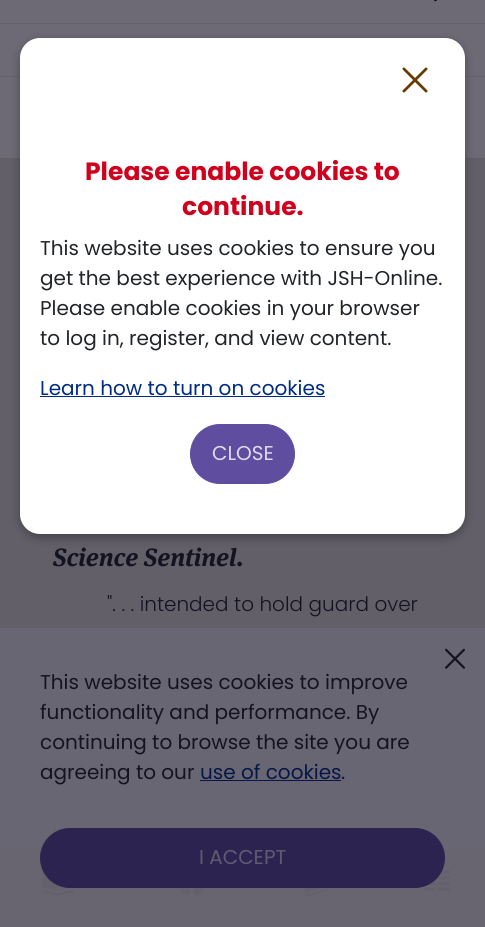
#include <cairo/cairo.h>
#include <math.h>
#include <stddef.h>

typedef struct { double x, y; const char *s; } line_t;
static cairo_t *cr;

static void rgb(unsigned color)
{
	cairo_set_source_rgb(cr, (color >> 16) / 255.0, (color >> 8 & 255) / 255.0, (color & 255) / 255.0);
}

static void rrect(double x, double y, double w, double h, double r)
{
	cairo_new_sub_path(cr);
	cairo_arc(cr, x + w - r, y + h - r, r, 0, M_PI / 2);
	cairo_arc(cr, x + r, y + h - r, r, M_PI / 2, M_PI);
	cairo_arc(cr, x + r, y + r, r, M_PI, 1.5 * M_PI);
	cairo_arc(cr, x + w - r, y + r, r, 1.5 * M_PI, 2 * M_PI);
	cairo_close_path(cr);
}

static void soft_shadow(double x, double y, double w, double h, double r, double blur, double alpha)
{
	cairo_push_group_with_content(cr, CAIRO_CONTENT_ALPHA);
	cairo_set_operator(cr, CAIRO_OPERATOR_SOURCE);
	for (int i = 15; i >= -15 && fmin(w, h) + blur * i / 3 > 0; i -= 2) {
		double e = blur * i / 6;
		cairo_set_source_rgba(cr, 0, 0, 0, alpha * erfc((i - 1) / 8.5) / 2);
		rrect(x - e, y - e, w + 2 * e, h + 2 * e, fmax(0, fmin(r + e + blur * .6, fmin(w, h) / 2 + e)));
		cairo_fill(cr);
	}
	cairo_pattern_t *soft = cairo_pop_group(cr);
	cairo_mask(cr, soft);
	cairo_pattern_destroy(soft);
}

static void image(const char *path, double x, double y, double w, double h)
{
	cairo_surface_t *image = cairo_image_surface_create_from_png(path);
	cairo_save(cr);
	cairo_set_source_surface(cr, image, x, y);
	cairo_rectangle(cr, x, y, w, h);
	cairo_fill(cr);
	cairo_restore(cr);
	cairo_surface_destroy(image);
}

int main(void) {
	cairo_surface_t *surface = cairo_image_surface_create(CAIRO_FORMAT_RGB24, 485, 927);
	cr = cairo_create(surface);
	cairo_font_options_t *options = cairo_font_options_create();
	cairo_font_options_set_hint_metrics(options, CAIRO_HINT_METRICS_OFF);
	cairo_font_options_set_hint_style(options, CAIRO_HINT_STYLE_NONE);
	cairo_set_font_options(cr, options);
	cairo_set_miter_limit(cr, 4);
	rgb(0x6d6a76);
	cairo_paint(cr);
	rgb(0x656171);
	cairo_rectangle(cr, 0, 23, 485, 1);
	cairo_fill(cr);
	image("img/1.png", 433, 0, 4, 2);
	cairo_rectangle(cr, 0, 76, 485, 1);
	cairo_fill(cr);
	rgb(0x625f69);
	cairo_rectangle(cr, 0, 158, 485, 690);
	cairo_fill(cr);
	rgb(0x000000);
	soft_shadow(20, 41, 445, 497, 20, 5, 0.31);
	rgb(0xffffff);
	rrect(20, 38, 445, 496, 20);
	cairo_fill(cr);
	image("img/2.png", 402, 67, 26, 26);
	rgb(0x002d83);
	cairo_rectangle(cr, 40, 396, 285, 1);
	cairo_fill(cr);
	rgb(0x5f4da0);
	rrect(190.5, 424.5, 104, 59, 29.5);
	cairo_fill_preserve(cr);
	cairo_set_line_width(cr, 1);
	cairo_stroke(cr);
	rgb(0x070410);
	soft_shadow(0, 844, 485, 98, 0, 5, 0.2);
	rgb(0x625043);
	cairo_rectangle(cr, 0, 848, 485, 79);
	cairo_fill(cr);
	image("img/4.png", 42, 868, 32, 29);
	image("img/5.png", 423, 870, 27, 21);
	image("img/6.png", 177, 888, 29, 8);
	image("img/7.png", 303, 888, 27, 9);
	cairo_set_source_rgba(cr, 0.412, 0.404, 0.455, 0.92);
	cairo_rectangle(cr, 0, 628, 485, 299);
	cairo_fill(cr);
	image("img/3.png", 445, 648, 20, 21);
	rgb(0x071645);
	cairo_rectangle(cr, 200, 780, 141, 1);
	cairo_fill(cr);
	rgb(0x2d2350);
	rrect(40.5, 828.5, 404, 59, 29.5);
	cairo_fill_preserve(cr);
	cairo_stroke(cr);
	cairo_select_font_face(cr, "Poppins", CAIRO_FONT_SLANT_NORMAL, CAIRO_FONT_WEIGHT_BOLD);
	cairo_set_font_size(cr, 25);
	rgb(0xd0011c);
	cairo_move_to(cr, 85, 180);
	cairo_show_text(cr, "Please enable cookies to");
	cairo_move_to(cr, 182, 215);
	cairo_show_text(cr, "continue.");
	cairo_select_font_face(cr, "Poppins", CAIRO_FONT_SLANT_NORMAL, CAIRO_FONT_WEIGHT_NORMAL);
	cairo_set_font_size(cr, 20);
	rgb(0x212529);
	{
		static const line_t items[] = {
			{40, 255, "This website uses cookies to ensure you"},
			{40, 285, "get the best experience with JSH-Online."},
			{40, 315, "Please enable cookies in your browser"},
			{40, 345, "to log in, register, and view content."},
		};
		for (size_t i = 0; i < sizeof items / sizeof *items; i++) {
			cairo_move_to(cr, items[i].x, items[i].y);
			cairo_show_text(cr, items[i].s);
		}
	}
	rgb(0x002d83);
	cairo_move_to(cr, 40, 395);
	cairo_show_text(cr, "Learn how to turn on cookies");
	rgb(0xdfdbec);
	cairo_move_to(cr, 212, 460);
	cairo_show_text(cr, "CLOSE");
	cairo_select_font_face(cr, "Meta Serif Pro", CAIRO_FONT_SLANT_ITALIC, CAIRO_FONT_WEIGHT_BOLD);
	cairo_set_font_size(cr, 25);
	rgb(0x141321);
	cairo_move_to(cr, 53, 566);
	cairo_show_text(cr, "Science Sentinel");
	cairo_select_font_face(cr, "Meta Serif Pro", CAIRO_FONT_SLANT_NORMAL, CAIRO_FONT_WEIGHT_BOLD);
	cairo_move_to(cr, 236, 566);
	cairo_show_text(cr, ".");
	cairo_select_font_face(cr, "Poppins Light", CAIRO_FONT_SLANT_NORMAL, CAIRO_FONT_WEIGHT_NORMAL);
	cairo_set_font_size(cr, 20);
	cairo_move_to(cr, 107, 611);
	cairo_show_text(cr, "\". . . intended to hold guard over");
	cairo_select_font_face(cr, "Poppins", CAIRO_FONT_SLANT_NORMAL, CAIRO_FONT_WEIGHT_NORMAL);
	{
		static const line_t items[] = {
			{40, 689, "This website uses cookies to improve"},
			{40, 719, "functionality and performance. By"},
			{40, 749, "continuing to browse the site you are"},
			{40, 779, "agreeing to our"},
		};
		for (size_t i = 0; i < sizeof items / sizeof *items; i++) {
			cairo_move_to(cr, items[i].x, items[i].y);
			cairo_show_text(cr, items[i].s);
		}
	}
	rgb(0x071645);
	cairo_move_to(cr, 200, 779);
	cairo_show_text(cr, "use of cookies");
	rgb(0x141321);
	cairo_move_to(cr, 341, 779);
	cairo_show_text(cr, ".");
	rgb(0x605c6f);
	cairo_move_to(cr, 199, 864);
	cairo_show_text(cr, "I ACCEPT");
	cairo_surface_write_to_png(surface, "page.png");
	cairo_font_options_destroy(options);
	cairo_destroy(cr);
	cairo_surface_destroy(surface);
	return 0;
}
